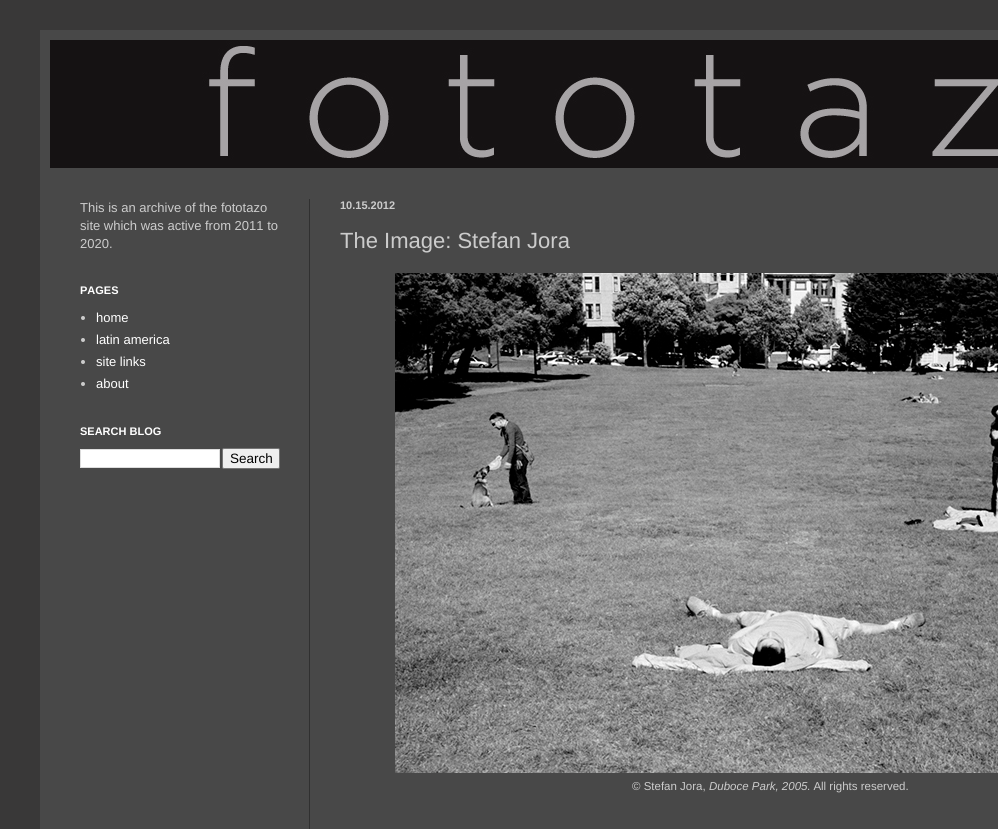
#include <cairo/cairo.h>
#include <math.h>
#include <stddef.h>

typedef struct { double x, y; const char *s; } line_t;
static cairo_t *cr;

static void rgb(unsigned color)
{
	cairo_set_source_rgb(cr, (color >> 16) / 255.0, (color >> 8 & 255) / 255.0, (color & 255) / 255.0);
}

static void rrect(double x, double y, double w, double h, double r)
{
	cairo_new_sub_path(cr);
	cairo_arc(cr, x + w - r, y + h - r, r, 0, M_PI / 2);
	cairo_arc(cr, x + r, y + h - r, r, M_PI / 2, M_PI);
	cairo_arc(cr, x + r, y + r, r, M_PI, 1.5 * M_PI);
	cairo_arc(cr, x + w - r, y + r, r, 1.5 * M_PI, 2 * M_PI);
	cairo_close_path(cr);
}

static void image(const char *path, double x, double y, double w, double h)
{
	cairo_surface_t *image = cairo_image_surface_create_from_png(path);
	cairo_save(cr);
	cairo_set_source_surface(cr, image, x, y);
	cairo_rectangle(cr, x, y, w, h);
	cairo_fill(cr);
	cairo_restore(cr);
	cairo_surface_destroy(image);
}

int main(void) {
	cairo_surface_t *surface = cairo_image_surface_create(CAIRO_FORMAT_RGB24, 998, 829);
	cr = cairo_create(surface);
	cairo_font_options_t *options = cairo_font_options_create();
	cairo_font_options_set_hint_metrics(options, CAIRO_HINT_METRICS_OFF);
	cairo_font_options_set_hint_style(options, CAIRO_HINT_STYLE_NONE);
	cairo_set_font_options(cr, options);
	cairo_set_miter_limit(cr, 4);
	rgb(0x393838);
	cairo_paint(cr);
	rgb(0x484848);
	cairo_rectangle(cr, 40, 30, 958, 799);
	cairo_fill(cr);
	image("img/1.png", 50, 40, 948, 128);
	rgb(0x303030);
	cairo_rectangle(cr, 309, 199, 1, 630);
	cairo_fill(cr);
	rgb(0xcccccc);
	cairo_arc(cr, 83, 318, 2, 0, 2 * M_PI);
	cairo_fill(cr);
	cairo_arc(cr, 83, 340, 2, 0, 2 * M_PI);
	cairo_fill(cr);
	cairo_arc(cr, 83, 362, 2, 0, 2 * M_PI);
	cairo_fill(cr);
	cairo_arc(cr, 83, 384, 2, 0, 2 * M_PI);
	cairo_fill(cr);
	rgb(0xffffff);
	cairo_rectangle(cr, 80.5, 449.5, 139, 18);
	cairo_fill_preserve(cr);
	rgb(0xdddddd);
	cairo_set_line_width(cr, 1);
	cairo_stroke(cr);
	rgb(0xefefef);
	rrect(222.5, 448.5, 57, 20, 1.5);
	cairo_fill_preserve(cr);
	rgb(0x767676);
	cairo_stroke(cr);
	image("img/2.png", 395, 273, 603, 500);
	cairo_select_font_face(cr, "Liberation Sans", CAIRO_FONT_SLANT_NORMAL, CAIRO_FONT_WEIGHT_NORMAL);
	cairo_set_font_size(cr, 13);
	rgb(0xcccccc);
	{
		static const line_t items[] = {
			{80, 212, "This is an archive of the fototazo"},
			{80, 230, "site which was active from 2011 to"},
			{80, 248, "2020."},
		};
		for (size_t i = 0; i < sizeof items / sizeof *items; i++) {
			cairo_move_to(cr, items[i].x, items[i].y);
			cairo_show_text(cr, items[i].s);
		}
	}
	cairo_select_font_face(cr, "Liberation Sans", CAIRO_FONT_SLANT_NORMAL, CAIRO_FONT_WEIGHT_BOLD);
	cairo_set_font_size(cr, 11);
	rgb(0xffffff);
	cairo_move_to(cr, 80, 294);
	cairo_show_text(cr, "PAGES");
	cairo_select_font_face(cr, "Liberation Sans", CAIRO_FONT_SLANT_NORMAL, CAIRO_FONT_WEIGHT_NORMAL);
	cairo_set_font_size(cr, 13);
	{
		static const line_t items[] = {
			{96, 322, "home"},
			{96, 344, "latin america"},
			{96, 366, "site links"},
			{96, 388, "about"},
		};
		for (size_t i = 0; i < sizeof items / sizeof *items; i++) {
			cairo_move_to(cr, items[i].x, items[i].y);
			cairo_show_text(cr, items[i].s);
		}
	}
	cairo_select_font_face(cr, "Liberation Sans", CAIRO_FONT_SLANT_NORMAL, CAIRO_FONT_WEIGHT_BOLD);
	cairo_set_font_size(cr, 11);
	cairo_move_to(cr, 80, 435);
	cairo_show_text(cr, "SEARCH BLOG");
	cairo_select_font_face(cr, "Liberation Sans", CAIRO_FONT_SLANT_NORMAL, CAIRO_FONT_WEIGHT_NORMAL);
	cairo_set_font_size(cr, 13.5);
	rgb(0x000000);
	cairo_move_to(cr, 230, 463);
	cairo_show_text(cr, "Search");
	cairo_select_font_face(cr, "Liberation Sans", CAIRO_FONT_SLANT_NORMAL, CAIRO_FONT_WEIGHT_BOLD);
	cairo_set_font_size(cr, 11);
	rgb(0xcccccc);
	cairo_move_to(cr, 340, 209);
	cairo_show_text(cr, "10.15.2012");
	cairo_select_font_face(cr, "Liberation Sans", CAIRO_FONT_SLANT_NORMAL, CAIRO_FONT_WEIGHT_NORMAL);
	cairo_set_font_size(cr, 22);
	cairo_move_to(cr, 340, 248);
	cairo_show_text(cr, "The Image: Stefan Jora");
	cairo_set_font_size(cr, 11.5);
	cairo_move_to(cr, 632, 790);
	cairo_show_text(cr, "© Stefan Jora,");
	cairo_select_font_face(cr, "Liberation Sans", CAIRO_FONT_SLANT_ITALIC, CAIRO_FONT_WEIGHT_NORMAL);
	cairo_move_to(cr, 709, 790);
	cairo_show_text(cr, "Duboce Park, 2005");
	cairo_select_font_face(cr, "Liberation Sans", CAIRO_FONT_SLANT_NORMAL, CAIRO_FONT_WEIGHT_NORMAL);
	cairo_move_to(cr, 807, 790);
	cairo_show_text(cr, ". All rights reserved.");
	cairo_surface_write_to_png(surface, "page.png");
	cairo_font_options_destroy(options);
	cairo_destroy(cr);
	cairo_surface_destroy(surface);
	return 0;
}
